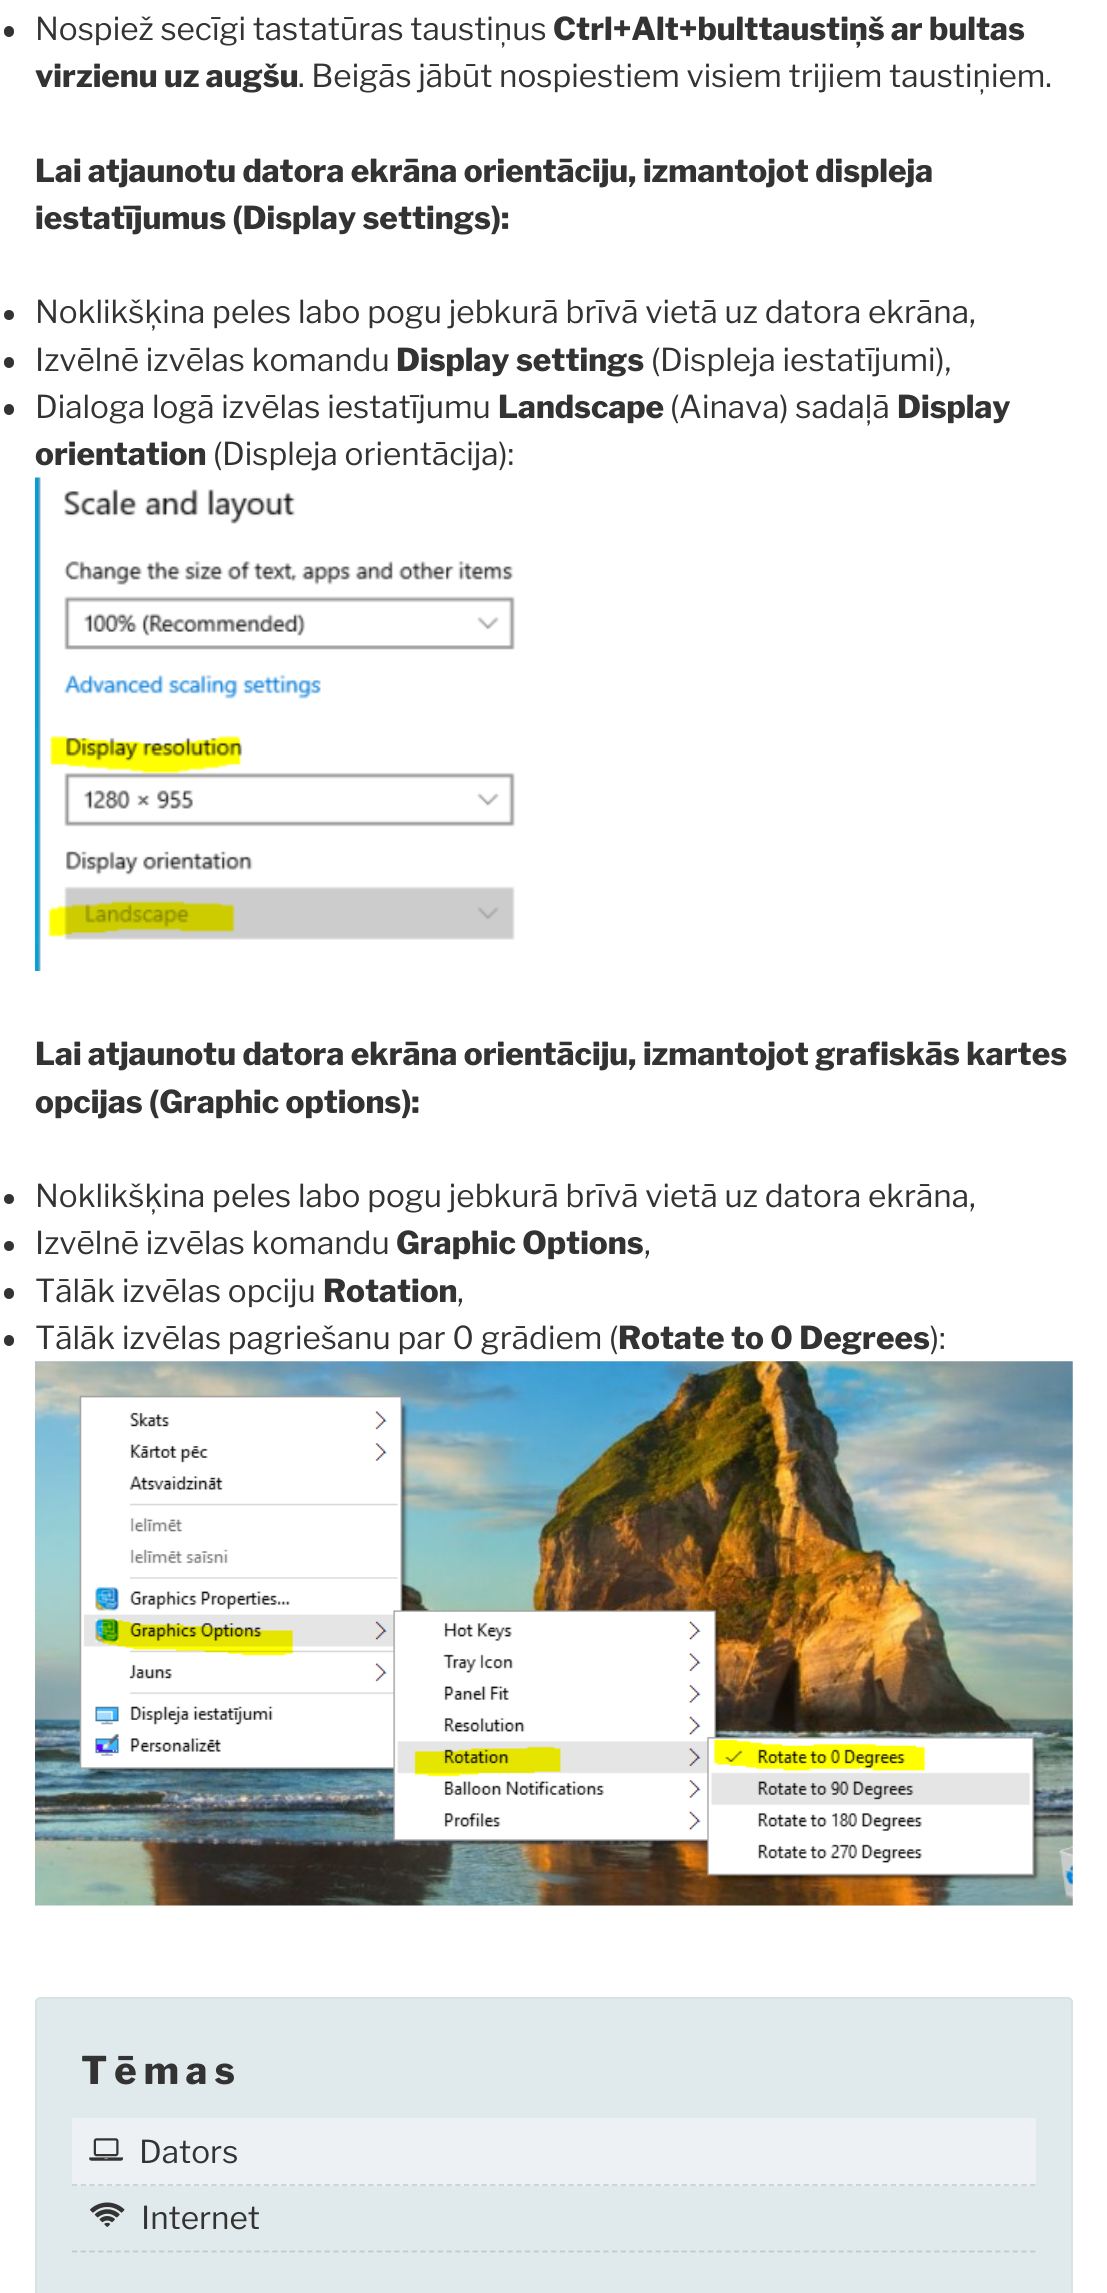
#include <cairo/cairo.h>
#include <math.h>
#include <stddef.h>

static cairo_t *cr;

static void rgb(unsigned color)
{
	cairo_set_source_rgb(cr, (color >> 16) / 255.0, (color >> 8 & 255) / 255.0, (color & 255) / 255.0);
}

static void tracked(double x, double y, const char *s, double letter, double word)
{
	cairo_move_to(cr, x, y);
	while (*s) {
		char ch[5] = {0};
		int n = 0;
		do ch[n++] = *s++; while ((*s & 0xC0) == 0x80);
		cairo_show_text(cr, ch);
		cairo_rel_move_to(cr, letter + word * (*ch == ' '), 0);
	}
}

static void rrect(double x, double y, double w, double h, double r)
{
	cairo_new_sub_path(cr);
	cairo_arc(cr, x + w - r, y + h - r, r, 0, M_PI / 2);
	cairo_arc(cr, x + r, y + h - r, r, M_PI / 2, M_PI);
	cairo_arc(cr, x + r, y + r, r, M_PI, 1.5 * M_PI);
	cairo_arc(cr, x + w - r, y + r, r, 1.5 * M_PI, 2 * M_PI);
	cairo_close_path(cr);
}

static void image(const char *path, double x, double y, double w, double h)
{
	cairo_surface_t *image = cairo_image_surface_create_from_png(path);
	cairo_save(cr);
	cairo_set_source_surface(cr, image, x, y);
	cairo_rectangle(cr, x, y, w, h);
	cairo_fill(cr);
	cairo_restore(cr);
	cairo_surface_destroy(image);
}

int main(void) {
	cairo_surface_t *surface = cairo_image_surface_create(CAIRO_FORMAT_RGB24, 1107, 2293);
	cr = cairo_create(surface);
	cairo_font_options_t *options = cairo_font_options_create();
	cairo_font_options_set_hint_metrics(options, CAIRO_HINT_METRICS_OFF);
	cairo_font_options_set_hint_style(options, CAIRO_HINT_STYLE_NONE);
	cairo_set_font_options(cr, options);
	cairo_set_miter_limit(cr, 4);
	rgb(0xffffff);
	cairo_paint(cr);
	rgb(0x333333);
	rrect(4, 26, 10, 11, 5);
	cairo_fill(cr);
	cairo_arc(cr, 9, 315, 5, 0, 2 * M_PI);
	cairo_fill(cr);
	rrect(4, 357, 10, 11, 5);
	cairo_fill(cr);
	rrect(4, 404, 10, 11, 5);
	cairo_fill(cr);
	image("img/1.png", 35, 477, 480, 494);
	cairo_arc(cr, 9, 1199, 5, 0, 2 * M_PI);
	cairo_fill(cr);
	cairo_arc(cr, 9, 1246, 5, 0, 2 * M_PI);
	cairo_fill(cr);
	rrect(4, 1288, 10, 11, 5);
	cairo_fill(cr);
	rrect(4, 1335, 10, 11, 5);
	cairo_fill(cr);
	image("img/2.png", 35, 1361, 1038, 545);
	rgb(0xe0e9eb);
	rrect(36, 1998, 1036, 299, 4);
	cairo_fill_preserve(cr);
	rgb(0xd7e2e5);
	cairo_stroke(cr);
	rgb(0xedf1f3);
	cairo_rectangle(cr, 72, 2118, 964, 68);
	cairo_fill(cr);
	cairo_new_path(cr);
	cairo_move_to(cr, 72, 2185);
	cairo_line_to(cr, 1036, 2185);
	rgb(0xcccfd1);
	cairo_set_line_width(cr, 1.8);
	cairo_set_dash(cr, (double[]){5.25, 3.46}, 2, 0);
	cairo_stroke(cr);
	image("img/3.png", 89, 2138, 34, 23);
	cairo_new_path(cr);
	cairo_move_to(cr, 72, 2251.5);
	cairo_line_to(cr, 1036, 2251.5);
	rgb(0xc3cacb);
	cairo_stroke(cr);
	image("img/4.png", 90, 2202, 35, 25);
	cairo_select_font_face(cr, "Libre Franklin", CAIRO_FONT_SLANT_NORMAL, CAIRO_FONT_WEIGHT_NORMAL);
	cairo_set_font_size(cr, 31.5);
	rgb(0x333333);
	cairo_move_to(cr, 35, 40);
	cairo_show_text(cr, "Nospiež secīgi tastatūras taustiņus");
	cairo_select_font_face(cr, "Libre Franklin ExtraBold", CAIRO_FONT_SLANT_NORMAL, CAIRO_FONT_WEIGHT_NORMAL);
	cairo_move_to(cr, 553, 40);
	cairo_show_text(cr, "Ctrl+Alt+bulttaustiņš ar bultas");
	cairo_move_to(cr, 35, 87);
	cairo_show_text(cr, "virzienu uz augšu");
	cairo_select_font_face(cr, "Libre Franklin", CAIRO_FONT_SLANT_NORMAL, CAIRO_FONT_WEIGHT_NORMAL);
	cairo_move_to(cr, 298, 87);
	cairo_show_text(cr, ". Beigās jābūt nospiestiem visiem trijiem taustiņiem.");
	cairo_select_font_face(cr, "Libre Franklin ExtraBold", CAIRO_FONT_SLANT_NORMAL, CAIRO_FONT_WEIGHT_NORMAL);
	cairo_move_to(cr, 35, 182);
	cairo_show_text(cr, "Lai atjaunotu datora ekrāna orientāciju, izmantojot displeja");
	cairo_move_to(cr, 35, 229);
	cairo_show_text(cr, "iestatījumus (Display settings):");
	cairo_select_font_face(cr, "Libre Franklin", CAIRO_FONT_SLANT_NORMAL, CAIRO_FONT_WEIGHT_NORMAL);
	cairo_move_to(cr, 35, 323);
	cairo_show_text(cr, "Noklikšķina peles labo pogu jebkurā brīvā vietā uz datora ekrāna,");
	cairo_move_to(cr, 35, 371);
	cairo_show_text(cr, "Izvēlnē izvēlas komandu");
	cairo_select_font_face(cr, "Libre Franklin ExtraBold", CAIRO_FONT_SLANT_NORMAL, CAIRO_FONT_WEIGHT_NORMAL);
	cairo_move_to(cr, 396, 371);
	cairo_show_text(cr, "Display settings");
	cairo_select_font_face(cr, "Libre Franklin", CAIRO_FONT_SLANT_NORMAL, CAIRO_FONT_WEIGHT_NORMAL);
	cairo_move_to(cr, 651, 371);
	cairo_show_text(cr, "(Displeja iestatījumi),");
	cairo_move_to(cr, 35, 418);
	cairo_show_text(cr, "Dialoga logā izvēlas iestatījumu");
	cairo_select_font_face(cr, "Libre Franklin ExtraBold", CAIRO_FONT_SLANT_NORMAL, CAIRO_FONT_WEIGHT_NORMAL);
	cairo_move_to(cr, 498, 418);
	cairo_show_text(cr, "Landscape");
	cairo_select_font_face(cr, "Libre Franklin", CAIRO_FONT_SLANT_NORMAL, CAIRO_FONT_WEIGHT_NORMAL);
	cairo_move_to(cr, 670, 418);
	cairo_show_text(cr, "(Ainava) sadaļā");
	cairo_select_font_face(cr, "Libre Franklin ExtraBold", CAIRO_FONT_SLANT_NORMAL, CAIRO_FONT_WEIGHT_NORMAL);
	cairo_move_to(cr, 897, 418);
	cairo_show_text(cr, "Display");
	cairo_move_to(cr, 35, 465);
	cairo_show_text(cr, "orientation");
	cairo_select_font_face(cr, "Libre Franklin", CAIRO_FONT_SLANT_NORMAL, CAIRO_FONT_WEIGHT_NORMAL);
	cairo_move_to(cr, 213, 465);
	cairo_show_text(cr, "(Displeja orientācija):");
	cairo_select_font_face(cr, "Libre Franklin ExtraBold", CAIRO_FONT_SLANT_NORMAL, CAIRO_FONT_WEIGHT_NORMAL);
	cairo_move_to(cr, 35, 1065);
	cairo_show_text(cr, "Lai atjaunotu datora ekrāna orientāciju, izmantojot grafiskās kartes");
	cairo_move_to(cr, 35, 1113);
	cairo_show_text(cr, "opcijas (Graphic options):");
	cairo_select_font_face(cr, "Libre Franklin", CAIRO_FONT_SLANT_NORMAL, CAIRO_FONT_WEIGHT_NORMAL);
	cairo_move_to(cr, 35, 1207);
	cairo_show_text(cr, "Noklikšķina peles labo pogu jebkurā brīvā vietā uz datora ekrāna,");
	cairo_move_to(cr, 35, 1254);
	cairo_show_text(cr, "Izvēlnē izvēlas komandu");
	cairo_select_font_face(cr, "Libre Franklin ExtraBold", CAIRO_FONT_SLANT_NORMAL, CAIRO_FONT_WEIGHT_NORMAL);
	cairo_move_to(cr, 396, 1254);
	cairo_show_text(cr, "Graphic Options");
	cairo_select_font_face(cr, "Libre Franklin", CAIRO_FONT_SLANT_NORMAL, CAIRO_FONT_WEIGHT_NORMAL);
	cairo_move_to(cr, 644, 1254);
	cairo_show_text(cr, ",");
	cairo_move_to(cr, 35, 1302);
	cairo_show_text(cr, "Tālāk izvēlas opciju");
	cairo_select_font_face(cr, "Libre Franklin ExtraBold", CAIRO_FONT_SLANT_NORMAL, CAIRO_FONT_WEIGHT_NORMAL);
	cairo_move_to(cr, 323, 1302);
	cairo_show_text(cr, "Rotation");
	cairo_select_font_face(cr, "Libre Franklin", CAIRO_FONT_SLANT_NORMAL, CAIRO_FONT_WEIGHT_NORMAL);
	cairo_move_to(cr, 457, 1302);
	cairo_show_text(cr, ",");
	cairo_move_to(cr, 35, 1349);
	cairo_show_text(cr, "Tālāk izvēlas pagriešanu par 0 grādiem (");
	cairo_select_font_face(cr, "Libre Franklin ExtraBold", CAIRO_FONT_SLANT_NORMAL, CAIRO_FONT_WEIGHT_NORMAL);
	cairo_move_to(cr, 618, 1349);
	cairo_show_text(cr, "Rotate to 0 Degrees");
	cairo_select_font_face(cr, "Libre Franklin", CAIRO_FONT_SLANT_NORMAL, CAIRO_FONT_WEIGHT_NORMAL);
	cairo_move_to(cr, 930, 1349);
	cairo_show_text(cr, "):");
	cairo_select_font_face(cr, "Libre Franklin ExtraBold", CAIRO_FONT_SLANT_NORMAL, CAIRO_FONT_WEIGHT_NORMAL);
	cairo_set_font_size(cr, 38);
	tracked(81, 2084, "Tēmas", 7, 0);
	cairo_select_font_face(cr, "Libre Franklin", CAIRO_FONT_SLANT_NORMAL, CAIRO_FONT_WEIGHT_NORMAL);
	cairo_set_font_size(cr, 31.5);
	cairo_move_to(cr, 139, 2163);
	cairo_show_text(cr, "Dators");
	cairo_move_to(cr, 141, 2229);
	cairo_show_text(cr, "Internet");
	cairo_surface_write_to_png(surface, "page.png");
	cairo_font_options_destroy(options);
	cairo_destroy(cr);
	cairo_surface_destroy(surface);
	return 0;
}
